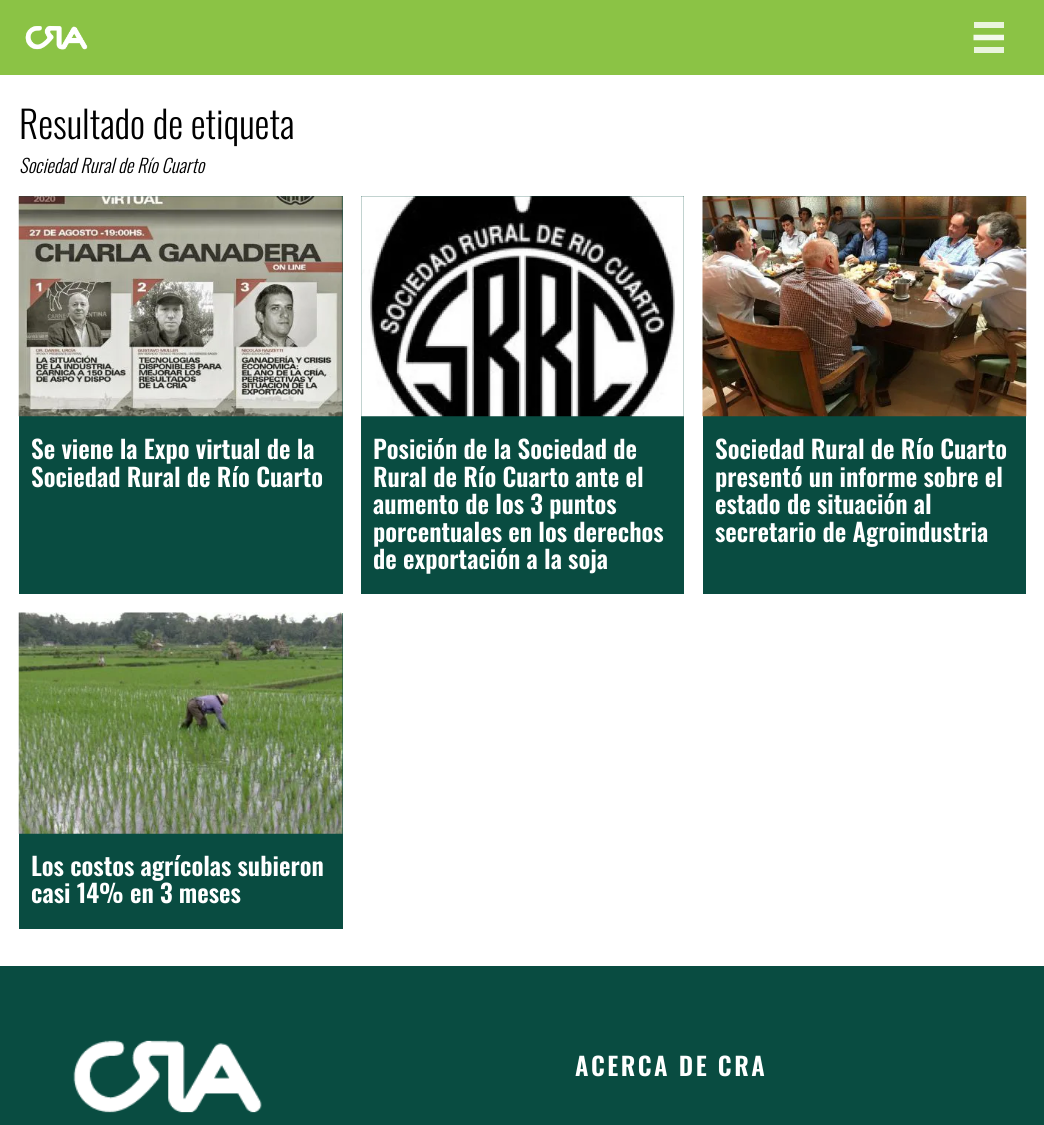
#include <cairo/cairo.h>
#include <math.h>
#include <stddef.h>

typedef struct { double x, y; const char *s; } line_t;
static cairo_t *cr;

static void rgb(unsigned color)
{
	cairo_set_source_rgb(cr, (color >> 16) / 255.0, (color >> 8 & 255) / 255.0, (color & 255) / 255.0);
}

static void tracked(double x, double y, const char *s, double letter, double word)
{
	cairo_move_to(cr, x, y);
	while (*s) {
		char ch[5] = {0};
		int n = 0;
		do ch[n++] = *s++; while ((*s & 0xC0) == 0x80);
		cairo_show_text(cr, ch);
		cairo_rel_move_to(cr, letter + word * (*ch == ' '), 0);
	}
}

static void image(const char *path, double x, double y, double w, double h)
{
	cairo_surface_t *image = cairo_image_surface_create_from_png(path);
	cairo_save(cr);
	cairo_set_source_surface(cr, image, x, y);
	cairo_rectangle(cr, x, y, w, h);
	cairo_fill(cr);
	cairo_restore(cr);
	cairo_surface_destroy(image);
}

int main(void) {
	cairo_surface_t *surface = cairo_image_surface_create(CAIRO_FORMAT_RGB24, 1044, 1125);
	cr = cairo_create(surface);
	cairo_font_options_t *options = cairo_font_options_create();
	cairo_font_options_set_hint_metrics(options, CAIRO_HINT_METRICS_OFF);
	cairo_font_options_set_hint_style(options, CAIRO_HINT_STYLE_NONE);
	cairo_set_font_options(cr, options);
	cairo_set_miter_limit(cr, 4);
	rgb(0xffffff);
	cairo_paint(cr);
	rgb(0x8bc345);
	cairo_rectangle(cr, 0, 0, 1044, 75);
	cairo_fill(cr);
	image("img/1.png", 25, 25, 63, 25);
	rgb(0xeaf5de);
	cairo_rectangle(cr, 974, 22, 30, 6);
	cairo_fill(cr);
	cairo_new_path(cr);
	cairo_move_to(cr, 1004, 37.5);
	cairo_line_to(cr, 973.5, 37.5);
	rgb(0xf3f9ec);
	cairo_set_line_width(cr, 5.5);
	cairo_stroke(cr);
	rgb(0xeaf5de);
	cairo_rectangle(cr, 974, 47, 30, 6);
	cairo_fill(cr);
	rgb(0x094c41);
	cairo_rectangle(cr, 19, 196, 324, 398);
	cairo_fill(cr);
	image("img/2.png", 18, 196, 325, 221);
	cairo_rectangle(cr, 361, 196, 323, 398);
	cairo_fill(cr);
	image("img/3.png", 361, 196, 323, 221);
	cairo_rectangle(cr, 703, 196, 323, 398);
	cairo_fill(cr);
	image("img/4.png", 702, 196, 325, 221);
	cairo_rectangle(cr, 19, 613, 324, 316);
	cairo_fill(cr);
	image("img/5.png", 18, 612, 325, 222);
	cairo_rectangle(cr, 0, 966, 1044, 159);
	cairo_fill(cr);
	image("img/6.png", 73, 1040, 189, 73);
	cairo_select_font_face(cr, "Oswald Light", CAIRO_FONT_SLANT_NORMAL, CAIRO_FONT_WEIGHT_NORMAL);
	cairo_set_font_size(cr, 37.5);
	rgb(0x000000);
	cairo_move_to(cr, 19, 139);
	cairo_show_text(cr, "Resultado de etiqueta");
	cairo_select_font_face(cr, "Oswald Light", CAIRO_FONT_SLANT_ITALIC, CAIRO_FONT_WEIGHT_NORMAL);
	cairo_set_font_size(cr, 18.75);
	cairo_move_to(cr, 19, 173);
	cairo_show_text(cr, "Sociedad Rural de Río Cuarto");
	cairo_select_font_face(cr, "Oswald SemiBold", CAIRO_FONT_SLANT_NORMAL, CAIRO_FONT_WEIGHT_NORMAL);
	cairo_set_font_size(cr, 25);
	rgb(0xffffff);
	{
		static const line_t items[] = {
			{31, 459, "Se viene la Expo virtual de la"},
			{31, 487, "Sociedad Rural de Río Cuarto"},
			{373, 459, "Posición de la Sociedad de"},
			{373, 487, "Rural de Río Cuarto ante el"},
			{373, 514, "aumento de los 3 puntos"},
			{373, 542, "porcentuales en los derechos"},
			{373, 569, "de exportación a la soja"},
			{715, 459, "Sociedad Rural de Río Cuarto"},
			{715, 487, "presentó un informe sobre el"},
			{715, 514, "estado de situación al"},
			{715, 542, "secretario de Agroindustria"},
			{31, 876, "Los costos agrícolas subieron"},
			{31, 903, "casi 14% en 3 meses"},
		};
		for (size_t i = 0; i < sizeof items / sizeof *items; i++) {
			cairo_move_to(cr, items[i].x, items[i].y);
			cairo_show_text(cr, items[i].s);
		}
	}
	tracked(575, 1076, "ACERCA DE CRA", 2.5, 0);
	cairo_surface_write_to_png(surface, "page.png");
	cairo_font_options_destroy(options);
	cairo_destroy(cr);
	cairo_surface_destroy(surface);
	return 0;
}
